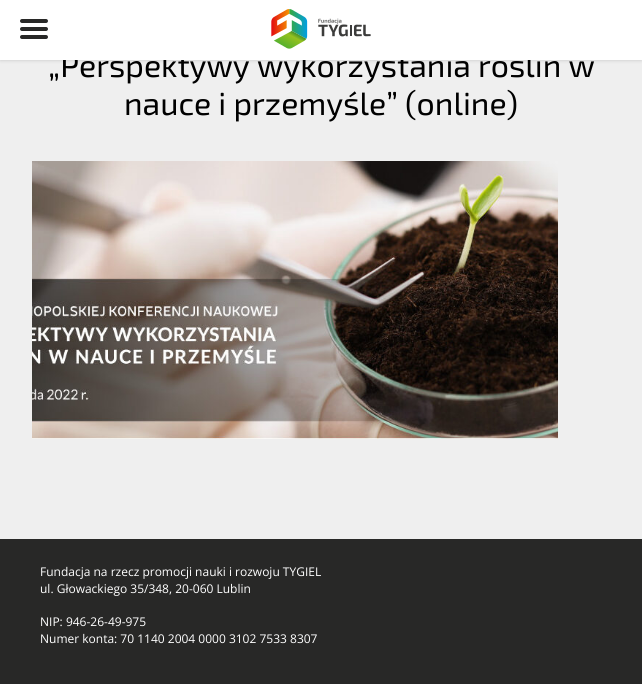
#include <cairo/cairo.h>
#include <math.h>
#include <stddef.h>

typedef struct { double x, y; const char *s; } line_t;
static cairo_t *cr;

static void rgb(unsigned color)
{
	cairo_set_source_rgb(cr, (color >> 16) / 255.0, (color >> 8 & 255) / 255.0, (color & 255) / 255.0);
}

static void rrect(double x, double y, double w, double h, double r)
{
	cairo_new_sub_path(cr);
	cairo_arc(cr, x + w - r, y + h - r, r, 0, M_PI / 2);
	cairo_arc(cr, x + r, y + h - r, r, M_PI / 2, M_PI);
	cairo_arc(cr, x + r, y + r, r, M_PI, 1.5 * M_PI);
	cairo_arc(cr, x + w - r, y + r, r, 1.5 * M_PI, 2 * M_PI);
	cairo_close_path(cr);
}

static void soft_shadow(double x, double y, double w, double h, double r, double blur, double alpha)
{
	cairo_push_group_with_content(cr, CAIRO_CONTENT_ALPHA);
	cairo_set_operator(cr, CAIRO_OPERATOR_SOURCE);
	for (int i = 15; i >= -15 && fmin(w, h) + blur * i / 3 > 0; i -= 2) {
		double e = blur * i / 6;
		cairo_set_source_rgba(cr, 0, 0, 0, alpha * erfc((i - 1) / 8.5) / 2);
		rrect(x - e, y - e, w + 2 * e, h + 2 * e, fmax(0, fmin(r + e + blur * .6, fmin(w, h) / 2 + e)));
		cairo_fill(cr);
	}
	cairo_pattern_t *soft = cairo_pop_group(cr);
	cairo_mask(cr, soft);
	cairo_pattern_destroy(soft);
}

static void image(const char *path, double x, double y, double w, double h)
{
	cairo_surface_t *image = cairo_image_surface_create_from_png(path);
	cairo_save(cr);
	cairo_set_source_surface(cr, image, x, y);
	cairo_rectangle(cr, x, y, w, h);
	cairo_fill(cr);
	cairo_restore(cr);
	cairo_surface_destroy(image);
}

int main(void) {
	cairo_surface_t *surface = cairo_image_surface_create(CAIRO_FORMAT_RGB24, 642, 684);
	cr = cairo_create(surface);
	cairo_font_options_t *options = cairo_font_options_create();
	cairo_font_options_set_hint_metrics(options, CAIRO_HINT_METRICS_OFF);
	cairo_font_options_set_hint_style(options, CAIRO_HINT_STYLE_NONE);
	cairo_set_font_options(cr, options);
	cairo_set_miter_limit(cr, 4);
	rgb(0xefefef);
	cairo_paint(cr);
	rgb(0x000000);
	soft_shadow(0, 1, 642, 60, 0, 1.5, 0.12);
	image("img/3.png", 32, 161, 526, 278);
	rgb(0x282827);
	cairo_rectangle(cr, 0, 539, 642, 145);
	cairo_fill(cr);
	cairo_select_font_face(cr, "Exo 2", CAIRO_FONT_SLANT_NORMAL, CAIRO_FONT_WEIGHT_NORMAL);
	cairo_set_font_size(cr, 32);
	rgb(0x000000);
	cairo_move_to(cr, 48, 77);
	cairo_show_text(cr, "„Perspektywy wykorzystania roślin w");
	rgb(0xffffff);
	cairo_rectangle(cr, 0, 0, 642, 60);
	cairo_fill(cr);
	image("img/1.png", 20, 19, 28, 20);
	image("img/2.png", 271, 9, 100, 40);
	rgb(0x000000);
	cairo_move_to(cr, 124, 115);
	cairo_show_text(cr, "nauce i przemyśle” (online)");
	cairo_select_font_face(cr, "Open Sans", CAIRO_FONT_SLANT_NORMAL, CAIRO_FONT_WEIGHT_NORMAL);
	cairo_set_font_size(cr, 12);
	rgb(0xffffff);
	{
		static const line_t items[] = {
			{40, 576, "Fundacja na rzecz promocji nauki i rozwoju TYGIEL"},
			{40, 593, "ul. Głowackiego 35/348, 20-060 Lublin"},
			{40, 626, "NIP: 946-26-49-975"},
			{40, 643, "Numer konta: 70 1140 2004 0000 3102 7533 8307"},
		};
		for (size_t i = 0; i < sizeof items / sizeof *items; i++) {
			cairo_move_to(cr, items[i].x, items[i].y);
			cairo_show_text(cr, items[i].s);
		}
	}
	cairo_surface_write_to_png(surface, "page.png");
	cairo_font_options_destroy(options);
	cairo_destroy(cr);
	cairo_surface_destroy(surface);
	return 0;
}
